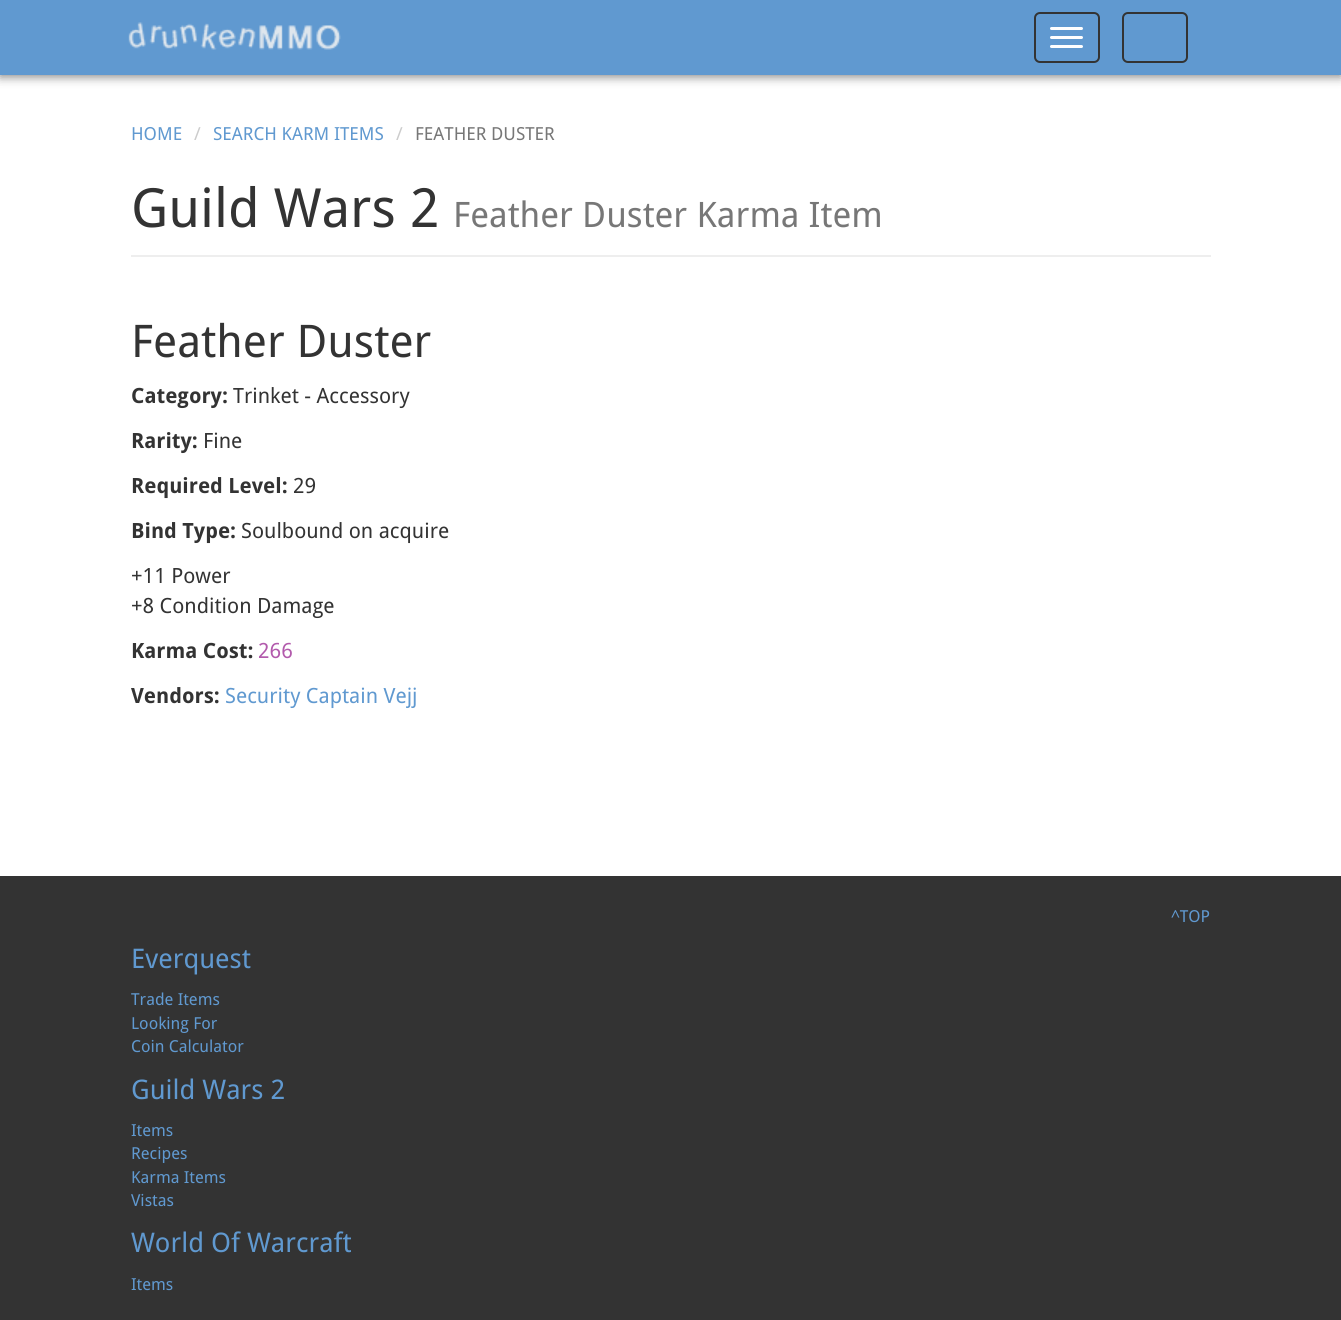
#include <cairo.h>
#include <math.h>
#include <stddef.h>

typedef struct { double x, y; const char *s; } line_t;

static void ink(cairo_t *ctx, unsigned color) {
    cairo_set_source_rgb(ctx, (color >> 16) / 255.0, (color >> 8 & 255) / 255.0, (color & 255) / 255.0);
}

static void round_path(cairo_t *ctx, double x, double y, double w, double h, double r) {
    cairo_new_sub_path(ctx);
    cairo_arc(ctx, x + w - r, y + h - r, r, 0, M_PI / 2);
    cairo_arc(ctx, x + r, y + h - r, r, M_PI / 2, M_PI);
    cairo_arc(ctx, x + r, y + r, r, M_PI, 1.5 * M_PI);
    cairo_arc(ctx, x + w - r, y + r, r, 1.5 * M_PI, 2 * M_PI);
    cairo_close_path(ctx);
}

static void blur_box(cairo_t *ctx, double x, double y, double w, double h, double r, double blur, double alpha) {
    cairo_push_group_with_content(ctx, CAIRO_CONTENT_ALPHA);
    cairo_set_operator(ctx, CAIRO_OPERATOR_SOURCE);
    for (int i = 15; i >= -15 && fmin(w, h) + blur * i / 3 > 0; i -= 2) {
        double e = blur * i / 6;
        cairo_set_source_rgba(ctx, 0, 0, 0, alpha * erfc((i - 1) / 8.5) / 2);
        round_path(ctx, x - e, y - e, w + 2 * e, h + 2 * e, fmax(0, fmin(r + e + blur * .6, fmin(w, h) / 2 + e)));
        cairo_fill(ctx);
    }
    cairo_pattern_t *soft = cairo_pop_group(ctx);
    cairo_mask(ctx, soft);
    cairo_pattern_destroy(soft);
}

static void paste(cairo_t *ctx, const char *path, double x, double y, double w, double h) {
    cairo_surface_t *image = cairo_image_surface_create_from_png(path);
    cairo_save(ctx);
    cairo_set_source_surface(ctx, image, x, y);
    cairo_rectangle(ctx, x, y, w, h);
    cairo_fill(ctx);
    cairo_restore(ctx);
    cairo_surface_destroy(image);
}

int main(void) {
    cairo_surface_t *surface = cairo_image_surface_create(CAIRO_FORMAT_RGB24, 1341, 1320);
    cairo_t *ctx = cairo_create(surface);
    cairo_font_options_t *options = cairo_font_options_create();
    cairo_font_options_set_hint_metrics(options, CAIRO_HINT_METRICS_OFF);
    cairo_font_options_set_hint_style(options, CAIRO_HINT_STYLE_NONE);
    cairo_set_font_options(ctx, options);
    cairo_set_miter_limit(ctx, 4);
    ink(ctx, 0xFFFFFF);
    cairo_paint(ctx);
    ink(ctx, 0x888888);
    blur_box(ctx, 0, 2, 1341, 75, 0, 5, 1);
    ink(ctx, 0x6099D0);
    cairo_rectangle(ctx, 0, 0, 1341, 75);
    cairo_fill(ctx);
    paste(ctx, "media/1.png", 128, 22, 213, 28);
    round_path(ctx, 1035, 13, 64, 49, 5);
    ink(ctx, 0x333333);
    cairo_stroke(ctx);
    ink(ctx, 0xFFFFFF);
    round_path(ctx, 1050, 27, 33, 3, 1.5);
    cairo_fill(ctx);
    round_path(ctx, 1050, 36, 33, 3, 1.5);
    cairo_fill(ctx);
    round_path(ctx, 1050, 45, 33, 3, 1.5);
    cairo_fill(ctx);
    round_path(ctx, 1123, 13, 64, 49, 5);
    ink(ctx, 0x333333);
    cairo_stroke(ctx);
    cairo_select_font_face(ctx, "Droid Sans", CAIRO_FONT_SLANT_NORMAL, CAIRO_FONT_WEIGHT_NORMAL);
    cairo_set_font_size(ctx, 18);
    ink(ctx, 0x6099D0);
    cairo_move_to(ctx, 131, 140);
    cairo_show_text(ctx, "HOME");
    ink(ctx, 0xCCCCCC);
    cairo_move_to(ctx, 194, 140);
    cairo_show_text(ctx, "/");
    ink(ctx, 0x6099D0);
    cairo_move_to(ctx, 213, 140);
    cairo_show_text(ctx, "SEARCH KARM ITEMS");
    ink(ctx, 0xCCCCCC);
    cairo_move_to(ctx, 396, 140);
    cairo_show_text(ctx, "/");
    ink(ctx, 0x777777);
    cairo_move_to(ctx, 415, 140);
    cairo_show_text(ctx, "FEATHER DUSTER");
    ink(ctx, 0xEEEEEE);
    cairo_rectangle(ctx, 131, 255, 1080, 2);
    cairo_fill(ctx);
    cairo_set_font_size(ctx, 54);
    ink(ctx, 0x333333);
    cairo_move_to(ctx, 131, 227);
    cairo_show_text(ctx, "Guild Wars 2");
    cairo_set_font_size(ctx, 35.1);
    ink(ctx, 0x777777);
    cairo_move_to(ctx, 453, 227);
    cairo_show_text(ctx, "Feather Duster Karma Item");
    cairo_set_font_size(ctx, 45);
    ink(ctx, 0x333333);
    cairo_move_to(ctx, 131, 357);
    cairo_show_text(ctx, "Feather Duster");
    cairo_select_font_face(ctx, "Droid Sans", CAIRO_FONT_SLANT_NORMAL, CAIRO_FONT_WEIGHT_BOLD);
    cairo_set_font_size(ctx, 21);
    cairo_move_to(ctx, 131, 403);
    cairo_show_text(ctx, "Category:");
    cairo_select_font_face(ctx, "Droid Sans", CAIRO_FONT_SLANT_NORMAL, CAIRO_FONT_WEIGHT_NORMAL);
    cairo_move_to(ctx, 233, 403);
    cairo_show_text(ctx, "Trinket - Accessory");
    cairo_select_font_face(ctx, "Droid Sans", CAIRO_FONT_SLANT_NORMAL, CAIRO_FONT_WEIGHT_BOLD);
    cairo_move_to(ctx, 131, 448);
    cairo_show_text(ctx, "Rarity:");
    cairo_select_font_face(ctx, "Droid Sans", CAIRO_FONT_SLANT_NORMAL, CAIRO_FONT_WEIGHT_NORMAL);
    cairo_move_to(ctx, 203, 448);
    cairo_show_text(ctx, "Fine");
    cairo_select_font_face(ctx, "Droid Sans", CAIRO_FONT_SLANT_NORMAL, CAIRO_FONT_WEIGHT_BOLD);
    cairo_move_to(ctx, 131, 493);
    cairo_show_text(ctx, "Required Level:");
    cairo_select_font_face(ctx, "Droid Sans", CAIRO_FONT_SLANT_NORMAL, CAIRO_FONT_WEIGHT_NORMAL);
    cairo_move_to(ctx, 293, 493);
    cairo_show_text(ctx, "29");
    cairo_select_font_face(ctx, "Droid Sans", CAIRO_FONT_SLANT_NORMAL, CAIRO_FONT_WEIGHT_BOLD);
    cairo_move_to(ctx, 131, 538);
    cairo_show_text(ctx, "Bind Type:");
    cairo_select_font_face(ctx, "Droid Sans", CAIRO_FONT_SLANT_NORMAL, CAIRO_FONT_WEIGHT_NORMAL);
    {
        static const line_t items[] = {
            {241, 538, "Soulbound on acquire"},
            {131, 583, "+11 Power"},
            {131, 613, "+8 Condition Damage"},
        };
        for (size_t i = 0; i < sizeof items / sizeof *items; i++) {
            cairo_move_to(ctx, items[i].x, items[i].y);
            cairo_show_text(ctx, items[i].s);
        }
    }
    cairo_select_font_face(ctx, "Droid Sans", CAIRO_FONT_SLANT_NORMAL, CAIRO_FONT_WEIGHT_BOLD);
    cairo_move_to(ctx, 131, 658);
    cairo_show_text(ctx, "Karma Cost:");
    cairo_select_font_face(ctx, "Droid Sans", CAIRO_FONT_SLANT_NORMAL, CAIRO_FONT_WEIGHT_NORMAL);
    ink(ctx, 0xB25AAC);
    cairo_move_to(ctx, 258, 658);
    cairo_show_text(ctx, "266");
    cairo_select_font_face(ctx, "Droid Sans", CAIRO_FONT_SLANT_NORMAL, CAIRO_FONT_WEIGHT_BOLD);
    ink(ctx, 0x333333);
    cairo_move_to(ctx, 131, 703);
    cairo_show_text(ctx, "Vendors:");
    cairo_select_font_face(ctx, "Droid Sans", CAIRO_FONT_SLANT_NORMAL, CAIRO_FONT_WEIGHT_NORMAL);
    ink(ctx, 0x6099D0);
    cairo_move_to(ctx, 225, 703);
    cairo_show_text(ctx, "Security Captain Vejj");
    ink(ctx, 0x333333);
    cairo_rectangle(ctx, 0, 876, 1341, 444);
    cairo_fill(ctx);
    cairo_set_font_size(ctx, 16.5);
    ink(ctx, 0x6099D0);
    cairo_move_to(ctx, 1171, 922);
    cairo_show_text(ctx, "^TOP");
    cairo_set_font_size(ctx, 27);
    cairo_move_to(ctx, 131, 968);
    cairo_show_text(ctx, "Everquest");
    cairo_set_font_size(ctx, 16.5);
    {
        static const line_t items[] = {
            {131, 1005, "Trade Items"},
            {131, 1029, "Looking For"},
            {131, 1052, "Coin Calculator"},
        };
        for (size_t i = 0; i < sizeof items / sizeof *items; i++) {
            cairo_move_to(ctx, items[i].x, items[i].y);
            cairo_show_text(ctx, items[i].s);
        }
    }
    cairo_set_font_size(ctx, 27);
    cairo_move_to(ctx, 131, 1099);
    cairo_show_text(ctx, "Guild Wars 2");
    cairo_set_font_size(ctx, 16.5);
    {
        static const line_t items[] = {
            {131, 1136, "Items"},
            {131, 1159, "Recipes"},
            {131, 1183, "Karma Items"},
            {131, 1206, "Vistas"},
        };
        for (size_t i = 0; i < sizeof items / sizeof *items; i++) {
            cairo_move_to(ctx, items[i].x, items[i].y);
            cairo_show_text(ctx, items[i].s);
        }
    }
    cairo_set_font_size(ctx, 27);
    cairo_move_to(ctx, 131, 1252);
    cairo_show_text(ctx, "World Of Warcraft");
    cairo_set_font_size(ctx, 16.5);
    cairo_move_to(ctx, 131, 1290);
    cairo_show_text(ctx, "Items");
    cairo_surface_write_to_png(surface, "image.png");
    cairo_font_options_destroy(options);
    cairo_destroy(ctx);
    cairo_surface_destroy(surface);
    return 0;
}
